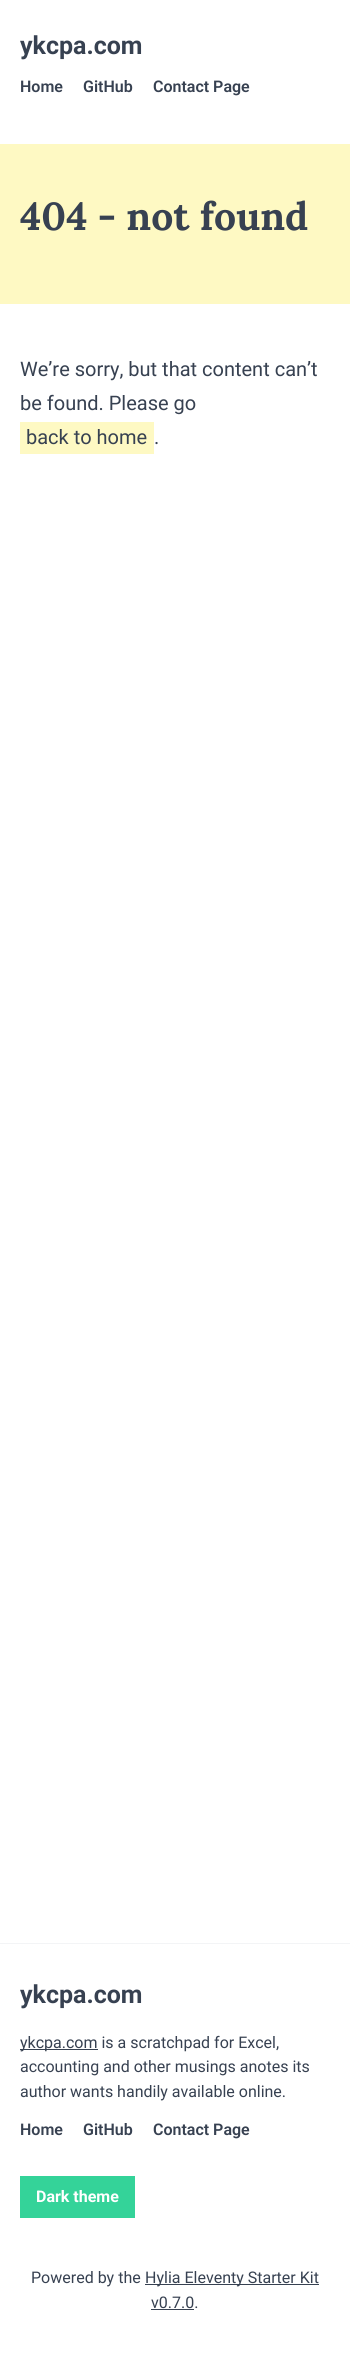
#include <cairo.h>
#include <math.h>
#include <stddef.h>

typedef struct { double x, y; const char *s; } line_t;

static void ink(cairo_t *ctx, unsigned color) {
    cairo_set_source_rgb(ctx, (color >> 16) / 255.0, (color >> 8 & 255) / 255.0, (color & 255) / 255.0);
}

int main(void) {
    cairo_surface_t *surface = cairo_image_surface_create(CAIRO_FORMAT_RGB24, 350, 2365);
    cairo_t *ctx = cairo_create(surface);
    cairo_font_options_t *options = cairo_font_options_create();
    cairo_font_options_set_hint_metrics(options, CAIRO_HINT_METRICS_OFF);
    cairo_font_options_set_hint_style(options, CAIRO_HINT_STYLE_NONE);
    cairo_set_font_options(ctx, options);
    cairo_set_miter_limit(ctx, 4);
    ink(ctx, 0xFFFFFF);
    cairo_paint(ctx);
    cairo_select_font_face(ctx, "Roboto", CAIRO_FONT_SLANT_NORMAL, CAIRO_FONT_WEIGHT_BOLD);
    cairo_set_font_size(ctx, 25);
    ink(ctx, 0x374151);
    cairo_move_to(ctx, 20, 54);
    cairo_show_text(ctx, "ykcpa.com");
    cairo_select_font_face(ctx, "Roboto SemiBold", CAIRO_FONT_SLANT_NORMAL, CAIRO_FONT_WEIGHT_NORMAL);
    cairo_set_font_size(ctx, 16);
    {
        static const line_t items[] = {
            {20, 92, "Home"},
            {83, 92, "GitHub"},
            {153, 92, "Contact Page"},
        };
        for (size_t i = 0; i < sizeof items / sizeof *items; i++) {
            cairo_move_to(ctx, items[i].x, items[i].y);
            cairo_show_text(ctx, items[i].s);
        }
    }
    ink(ctx, 0xFEF9C3);
    cairo_rectangle(ctx, 0, 144, 350, 160);
    cairo_fill(ctx);
    cairo_select_font_face(ctx, "Lora", CAIRO_FONT_SLANT_NORMAL, CAIRO_FONT_WEIGHT_BOLD);
    cairo_set_font_size(ctx, 39);
    ink(ctx, 0x374151);
    cairo_move_to(ctx, 20, 230);
    cairo_show_text(ctx, "404 - not found");
    cairo_select_font_face(ctx, "Roboto", CAIRO_FONT_SLANT_NORMAL, CAIRO_FONT_WEIGHT_NORMAL);
    cairo_set_font_size(ctx, 20);
    cairo_move_to(ctx, 20, 376);
    cairo_show_text(ctx, "We’re sorry, but that content can’t");
    cairo_move_to(ctx, 20, 410);
    cairo_show_text(ctx, "be found. Please go");
    ink(ctx, 0xFEF9C3);
    cairo_rectangle(ctx, 20, 422, 134, 32);
    cairo_fill(ctx);
    ink(ctx, 0x374151);
    cairo_move_to(ctx, 26, 444);
    cairo_show_text(ctx, "back to home");
    cairo_move_to(ctx, 154, 444);
    cairo_show_text(ctx, ".");
    ink(ctx, 0xF3F4F6);
    cairo_rectangle(ctx, 0, 1943, 350, 1);
    cairo_fill(ctx);
    cairo_select_font_face(ctx, "Roboto", CAIRO_FONT_SLANT_NORMAL, CAIRO_FONT_WEIGHT_BOLD);
    cairo_set_font_size(ctx, 25);
    ink(ctx, 0x374151);
    cairo_move_to(ctx, 20, 2003);
    cairo_show_text(ctx, "ykcpa.com");
    cairo_rectangle(ctx, 20, 2049, 78, 1);
    cairo_fill(ctx);
    cairo_select_font_face(ctx, "Roboto", CAIRO_FONT_SLANT_NORMAL, CAIRO_FONT_WEIGHT_NORMAL);
    cairo_set_font_size(ctx, 16);
    {
        static const line_t items[] = {
            {20, 2048, "ykcpa.com is a scratchpad for Excel,"},
            {20, 2072, "accounting and other musings anotes its"},
            {20, 2097, "author wants handily available online."},
        };
        for (size_t i = 0; i < sizeof items / sizeof *items; i++) {
            cairo_move_to(ctx, items[i].x, items[i].y);
            cairo_show_text(ctx, items[i].s);
        }
    }
    cairo_select_font_face(ctx, "Roboto SemiBold", CAIRO_FONT_SLANT_NORMAL, CAIRO_FONT_WEIGHT_NORMAL);
    {
        static const line_t items[] = {
            {20, 2135, "Home"},
            {83, 2135, "GitHub"},
            {153, 2135, "Contact Page"},
        };
        for (size_t i = 0; i < sizeof items / sizeof *items; i++) {
            cairo_move_to(ctx, items[i].x, items[i].y);
            cairo_show_text(ctx, items[i].s);
        }
    }
    ink(ctx, 0x34D399);
    cairo_rectangle(ctx, 20, 2176, 115, 42);
    cairo_fill(ctx);
    cairo_select_font_face(ctx, "Roboto", CAIRO_FONT_SLANT_NORMAL, CAIRO_FONT_WEIGHT_BOLD);
    ink(ctx, 0xFFFFFF);
    cairo_move_to(ctx, 36, 2202);
    cairo_show_text(ctx, "Dark theme");
    cairo_select_font_face(ctx, "Roboto", CAIRO_FONT_SLANT_NORMAL, CAIRO_FONT_WEIGHT_NORMAL);
    ink(ctx, 0x374151);
    cairo_move_to(ctx, 31, 2283);
    cairo_show_text(ctx, "Powered by the");
    cairo_rectangle(ctx, 145, 2284, 174, 1);
    cairo_fill(ctx);
    cairo_move_to(ctx, 145, 2283);
    cairo_show_text(ctx, "Hylia Eleventy Starter Kit");
    cairo_move_to(ctx, 151, 2308);
    cairo_show_text(ctx, "v0.7.0.");
    cairo_rectangle(ctx, 151, 2309, 43, 1);
    cairo_fill(ctx);
    cairo_surface_write_to_png(surface, "image.png");
    cairo_font_options_destroy(options);
    cairo_destroy(ctx);
    cairo_surface_destroy(surface);
    return 0;
}
